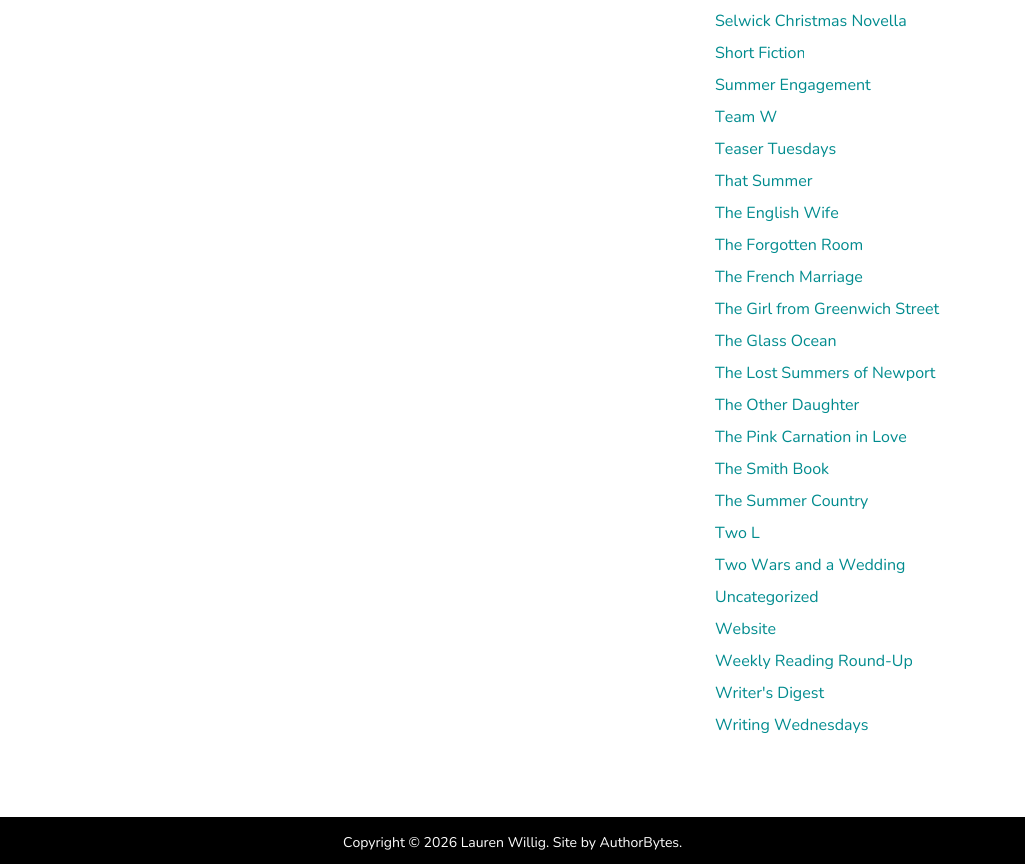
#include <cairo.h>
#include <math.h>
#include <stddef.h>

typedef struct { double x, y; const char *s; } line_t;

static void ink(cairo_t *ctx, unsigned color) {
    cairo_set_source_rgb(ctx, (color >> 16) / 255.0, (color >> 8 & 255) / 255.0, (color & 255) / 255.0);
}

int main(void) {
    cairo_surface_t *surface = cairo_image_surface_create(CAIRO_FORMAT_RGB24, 1025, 864);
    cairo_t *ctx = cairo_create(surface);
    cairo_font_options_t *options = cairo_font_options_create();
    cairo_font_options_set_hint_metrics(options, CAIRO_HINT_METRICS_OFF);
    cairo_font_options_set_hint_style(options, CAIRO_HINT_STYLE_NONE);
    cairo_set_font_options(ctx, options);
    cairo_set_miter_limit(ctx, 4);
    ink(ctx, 0xFFFFFF);
    cairo_paint(ctx);
    cairo_select_font_face(ctx, "Nunito", CAIRO_FONT_SLANT_NORMAL, CAIRO_FONT_WEIGHT_NORMAL);
    cairo_set_font_size(ctx, 16);
    ink(ctx, 0x008B8E);
    {
        static const line_t items[] = {
            {715, 26, "Selwick Christmas Novella"},
            {715, 58, "Short Fiction"},
            {715, 90, "Summer Engagement"},
            {715, 122, "Team W"},
            {715, 154, "Teaser Tuesdays"},
            {715, 186, "That Summer"},
            {715, 218, "The English Wife"},
            {715, 250, "The Forgotten Room"},
            {715, 282, "The French Marriage"},
            {715, 314, "The Girl from Greenwich Street"},
            {715, 346, "The Glass Ocean"},
            {715, 378, "The Lost Summers of Newport"},
            {715, 410, "The Other Daughter"},
            {715, 442, "The Pink Carnation in Love"},
            {715, 474, "The Smith Book"},
            {715, 506, "The Summer Country"},
            {715, 538, "Two L"},
            {715, 570, "Two Wars and a Wedding"},
            {715, 602, "Uncategorized"},
            {715, 634, "Website"},
            {715, 666, "Weekly Reading Round-Up"},
            {715, 698, "Writer's Digest"},
            {715, 730, "Writing Wednesdays"},
        };
        for (size_t i = 0; i < sizeof items / sizeof *items; i++) {
            cairo_move_to(ctx, items[i].x, items[i].y);
            cairo_show_text(ctx, items[i].s);
        }
    }
    ink(ctx, 0x000000);
    cairo_rectangle(ctx, 0, 817, 1025, 47);
    cairo_fill(ctx);
    cairo_set_font_size(ctx, 14);
    ink(ctx, 0xFFFFFF);
    cairo_move_to(ctx, 343, 847);
    cairo_show_text(ctx, "Copyright © 2026 Lauren Willig. Site by AuthorBytes.");
    cairo_surface_write_to_png(surface, "image.png");
    cairo_font_options_destroy(options);
    cairo_destroy(ctx);
    cairo_surface_destroy(surface);
    return 0;
}
